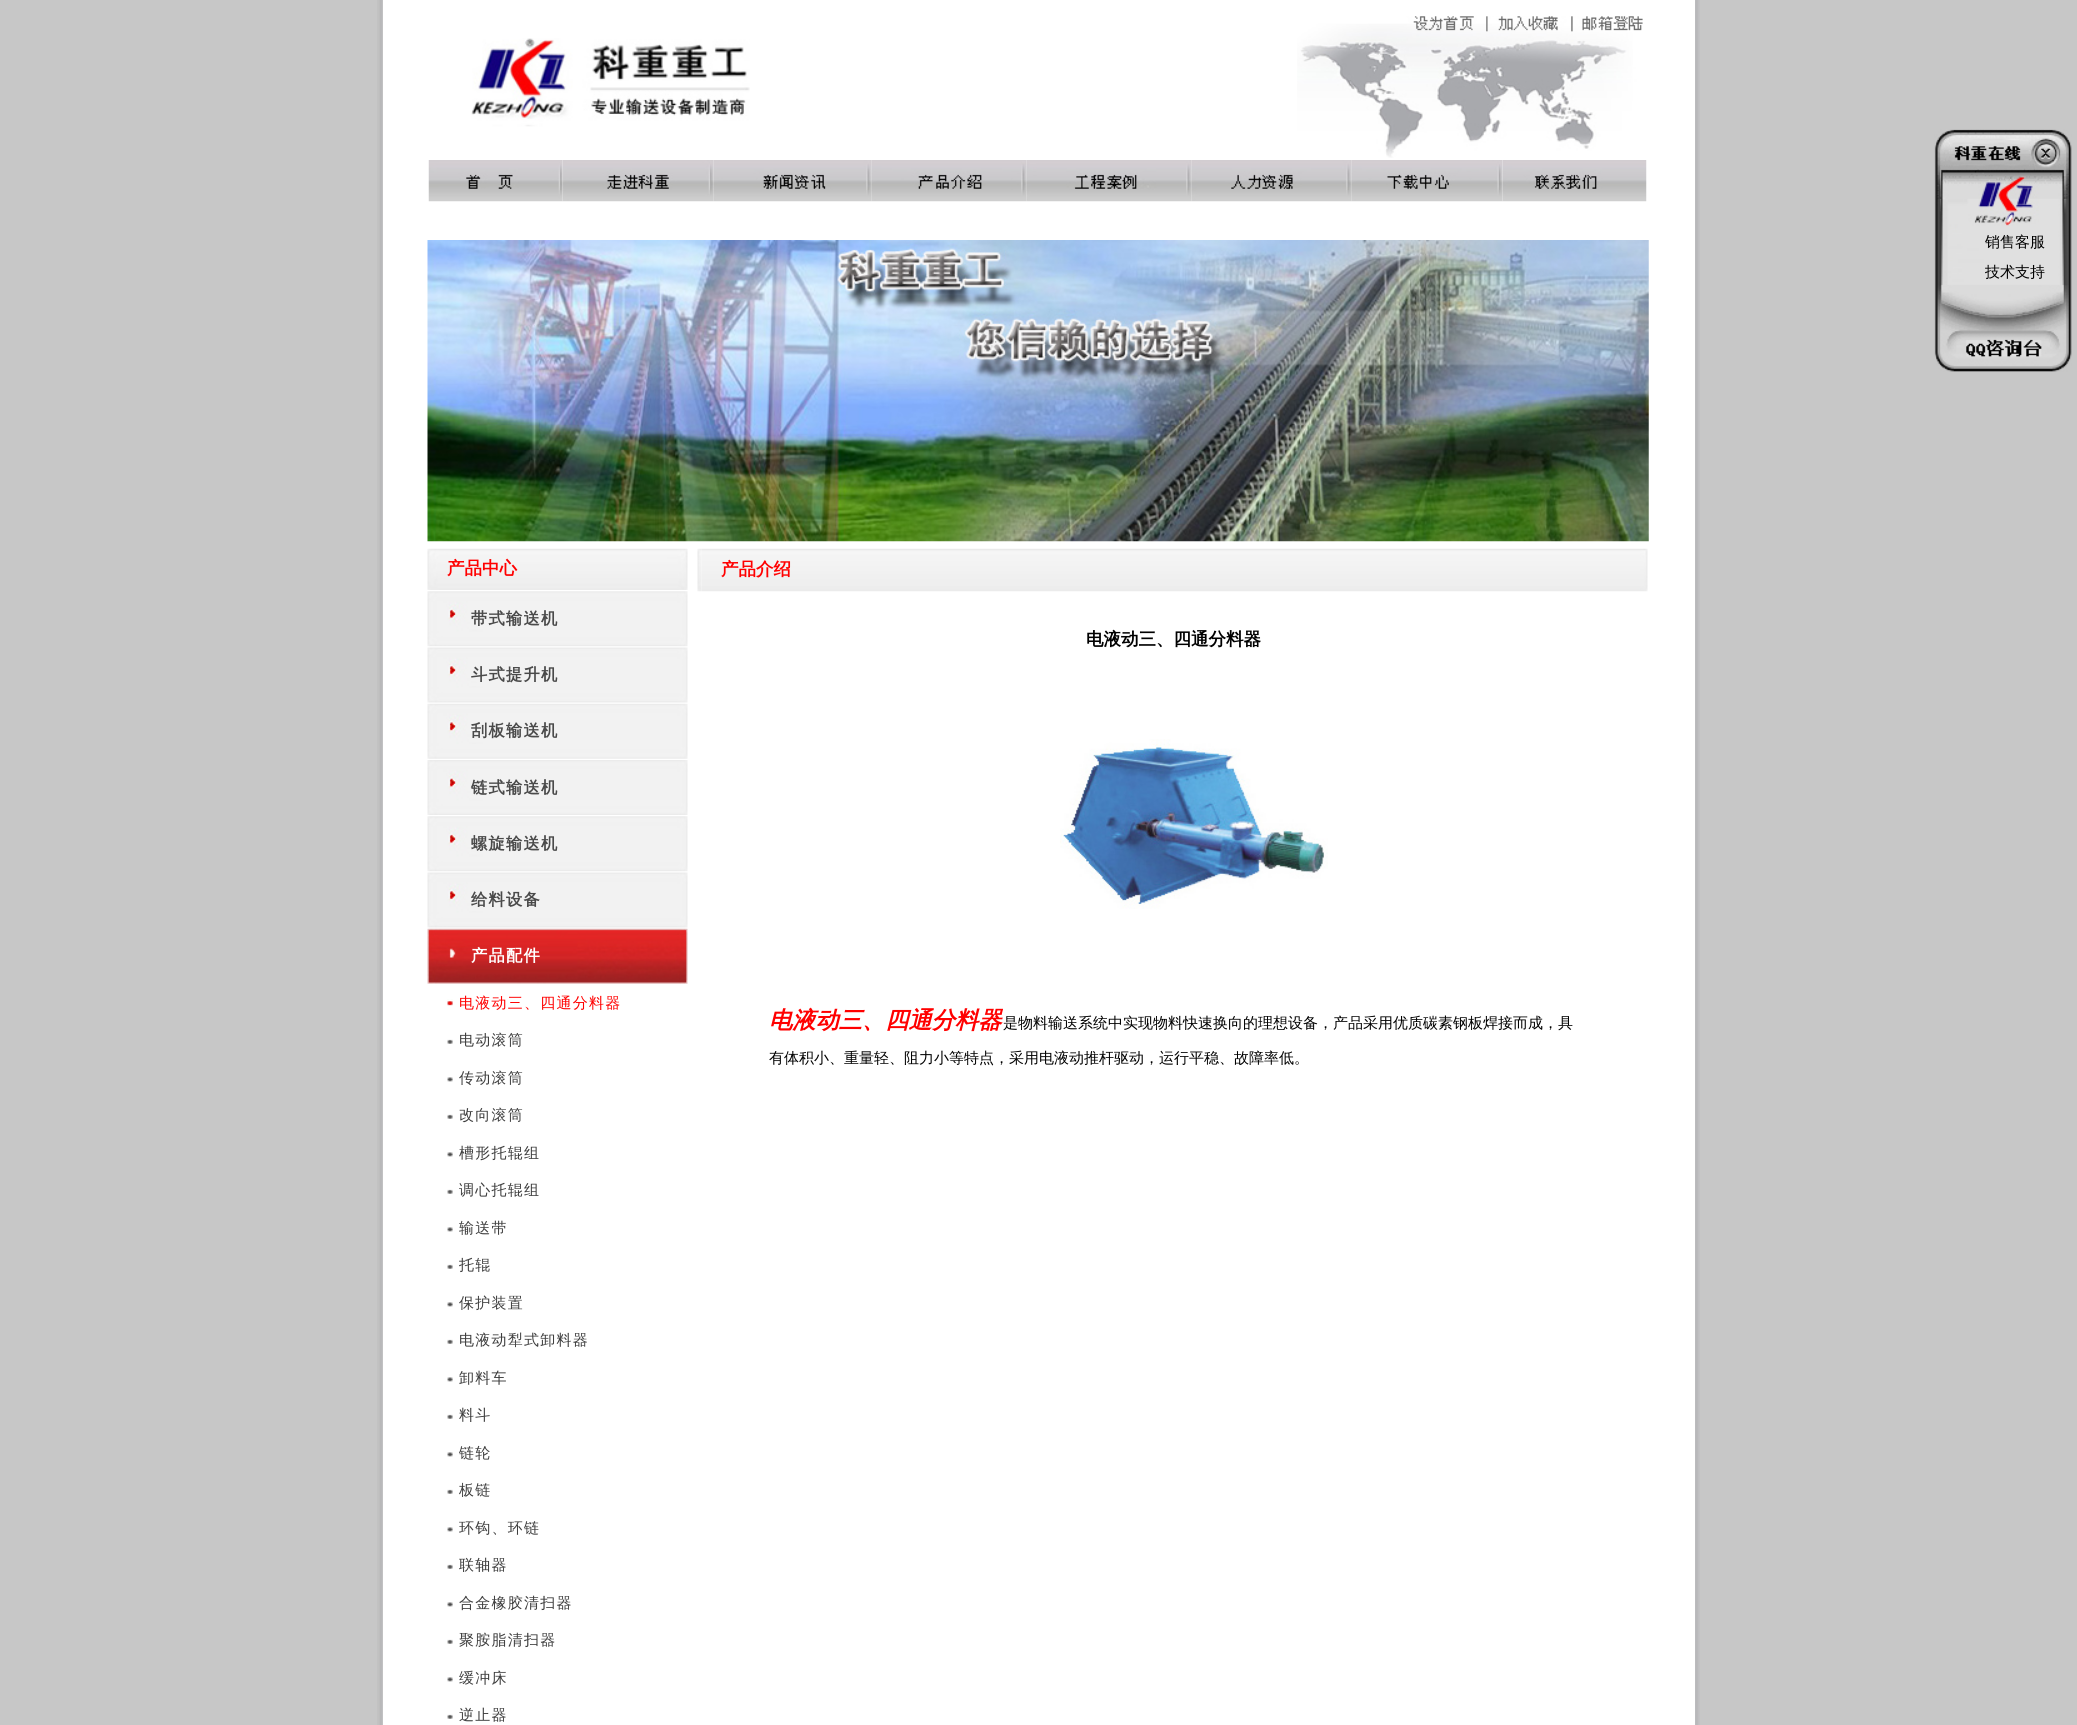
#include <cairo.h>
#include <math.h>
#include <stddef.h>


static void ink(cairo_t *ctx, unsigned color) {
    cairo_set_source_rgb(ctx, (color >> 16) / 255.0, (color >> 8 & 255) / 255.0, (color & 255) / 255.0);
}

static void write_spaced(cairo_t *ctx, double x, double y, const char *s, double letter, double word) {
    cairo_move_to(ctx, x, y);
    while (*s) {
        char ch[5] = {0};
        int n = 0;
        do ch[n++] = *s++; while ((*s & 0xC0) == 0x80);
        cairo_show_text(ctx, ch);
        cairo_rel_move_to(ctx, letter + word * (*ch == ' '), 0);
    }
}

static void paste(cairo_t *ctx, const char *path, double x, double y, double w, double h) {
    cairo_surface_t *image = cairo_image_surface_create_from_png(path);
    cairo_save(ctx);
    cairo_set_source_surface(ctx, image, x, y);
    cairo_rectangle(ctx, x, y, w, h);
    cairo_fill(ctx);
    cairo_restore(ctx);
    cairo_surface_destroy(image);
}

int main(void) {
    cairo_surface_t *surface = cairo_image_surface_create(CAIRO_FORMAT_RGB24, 2077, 1725);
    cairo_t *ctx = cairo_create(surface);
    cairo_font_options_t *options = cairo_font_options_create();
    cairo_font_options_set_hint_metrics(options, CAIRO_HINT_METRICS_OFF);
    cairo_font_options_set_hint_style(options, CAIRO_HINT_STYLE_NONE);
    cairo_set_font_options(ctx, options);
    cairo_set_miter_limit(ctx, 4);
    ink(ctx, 0xC7C7C7);
    cairo_paint(ctx);
    paste(ctx, "media/1.png", 377, 0, 6, 1725);
    ink(ctx, 0xFFFFFF);
    cairo_rectangle(ctx, 383, 0, 1312, 1725);
    cairo_fill(ctx);
    paste(ctx, "media/2.png", 1695, 0, 5, 1725);
    paste(ctx, "media/3.png", 471, 38, 279, 89);
    paste(ctx, "media/4.png", 1297, 16, 346, 142);
    paste(ctx, "media/5.png", 428, 160, 135, 42);
    paste(ctx, "media/6.png", 562, 160, 152, 42);
    paste(ctx, "media/7.png", 713, 160, 159, 42);
    paste(ctx, "media/8.png", 871, 160, 156, 42);
    paste(ctx, "media/9.png", 1026, 160, 166, 42);
    paste(ctx, "media/10.png", 1191, 160, 161, 42);
    paste(ctx, "media/11.png", 1351, 160, 152, 42);
    paste(ctx, "media/12.png", 1502, 160, 145, 42);
    paste(ctx, "media/13.png", 427, 240, 1222, 302);
    paste(ctx, "media/14.png", 1934, 129, 138, 243);
    cairo_select_font_face(ctx, "WenQuanYi Zen Hei Medium", CAIRO_FONT_SLANT_NORMAL, CAIRO_FONT_WEIGHT_NORMAL);
    cairo_set_font_size(ctx, 15);
    ink(ctx, 0x000000);
    cairo_move_to(ctx, 1985, 247);
    cairo_show_text(ctx, "销售客服");
    cairo_move_to(ctx, 1985, 277);
    cairo_show_text(ctx, "技术支持");
    paste(ctx, "media/15.png", 427, 548, 261, 42);
    cairo_select_font_face(ctx, "WenQuanYi Zen Hei", CAIRO_FONT_SLANT_NORMAL, CAIRO_FONT_WEIGHT_BOLD);
    cairo_set_font_size(ctx, 17.5);
    ink(ctx, 0xFF0000);
    cairo_move_to(ctx, 447, 574);
    cairo_show_text(ctx, "产品中心");
    paste(ctx, "media/16.png", 427, 591, 261, 56);
    cairo_set_font_size(ctx, 16.25);
    ink(ctx, 0x4A4A4A);
    write_spaced(ctx, 471, 624, "带式输送机", 1.25, 0);
    paste(ctx, "media/17.png", 427, 647, 261, 56);
    write_spaced(ctx, 471, 680, "斗式提升机", 1.25, 0);
    paste(ctx, "media/18.png", 427, 703, 261, 56);
    write_spaced(ctx, 471, 736, "刮板输送机", 1.25, 0);
    paste(ctx, "media/19.png", 427, 760, 261, 55);
    write_spaced(ctx, 471, 793, "链式输送机", 1.25, 0);
    paste(ctx, "media/16.png", 427, 816, 261, 56);
    write_spaced(ctx, 471, 849, "螺旋输送机", 1.25, 0);
    paste(ctx, "media/17.png", 427, 872, 261, 56);
    write_spaced(ctx, 471, 905, "给料设备", 1.25, 0);
    paste(ctx, "media/20.png", 427, 928, 261, 56);
    ink(ctx, 0xFFFFFF);
    write_spaced(ctx, 471, 961, "产品配件", 1.25, 0);
    paste(ctx, "media/21.png", 447, 999, 6, 7);
    cairo_select_font_face(ctx, "WenQuanYi Zen Hei Medium", CAIRO_FONT_SLANT_NORMAL, CAIRO_FONT_WEIGHT_NORMAL);
    cairo_set_font_size(ctx, 15);
    ink(ctx, 0xFF0000);
    write_spaced(ctx, 459, 1008, "电液动三、四通分料器", 1.25, 0);
    paste(ctx, "media/22.png", 447, 1039, 6, 5);
    ink(ctx, 0x3D3D3D);
    write_spaced(ctx, 459, 1045, "电动滚筒", 1.25, 0);
    paste(ctx, "media/23.png", 447, 1077, 6, 5);
    write_spaced(ctx, 459, 1083, "传动滚筒", 1.25, 0);
    paste(ctx, "media/22.png", 447, 1114, 6, 5);
    write_spaced(ctx, 459, 1120, "改向滚筒", 1.25, 0);
    paste(ctx, "media/23.png", 447, 1152, 6, 5);
    write_spaced(ctx, 459, 1158, "槽形托辊组", 1.25, 0);
    paste(ctx, "media/22.png", 447, 1189, 6, 5);
    write_spaced(ctx, 459, 1195, "调心托辊组", 1.25, 0);
    paste(ctx, "media/23.png", 447, 1227, 6, 5);
    write_spaced(ctx, 459, 1233, "输送带", 1.25, 0);
    paste(ctx, "media/22.png", 447, 1264, 6, 5);
    write_spaced(ctx, 459, 1270, "托辊", 1.25, 0);
    paste(ctx, "media/23.png", 447, 1302, 6, 5);
    write_spaced(ctx, 459, 1308, "保护装置", 1.25, 0);
    paste(ctx, "media/22.png", 447, 1339, 6, 5);
    write_spaced(ctx, 459, 1345, "电液动犁式卸料器", 1.25, 0);
    paste(ctx, "media/23.png", 447, 1377, 6, 5);
    write_spaced(ctx, 459, 1383, "卸料车", 1.25, 0);
    paste(ctx, "media/22.png", 447, 1414, 6, 5);
    write_spaced(ctx, 459, 1420, "料斗", 1.25, 0);
    paste(ctx, "media/23.png", 447, 1452, 6, 5);
    write_spaced(ctx, 459, 1458, "链轮", 1.25, 0);
    paste(ctx, "media/22.png", 447, 1489, 6, 5);
    write_spaced(ctx, 459, 1495, "板链", 1.25, 0);
    paste(ctx, "media/23.png", 447, 1527, 6, 5);
    write_spaced(ctx, 459, 1533, "环钩、环链", 1.25, 0);
    paste(ctx, "media/24.png", 447, 1564, 6, 5);
    write_spaced(ctx, 459, 1570, "联轴器", 1.25, 0);
    paste(ctx, "media/23.png", 447, 1602, 6, 5);
    write_spaced(ctx, 459, 1608, "合金橡胶清扫器", 1.25, 0);
    paste(ctx, "media/22.png", 447, 1639, 6, 5);
    write_spaced(ctx, 459, 1645, "聚胺脂清扫器", 1.25, 0);
    paste(ctx, "media/23.png", 447, 1677, 6, 5);
    write_spaced(ctx, 459, 1683, "缓冲床", 1.25, 0);
    paste(ctx, "media/22.png", 447, 1714, 6, 5);
    write_spaced(ctx, 459, 1720, "逆止器", 1.25, 0);
    paste(ctx, "media/25.png", 697, 548, 4, 44);
    paste(ctx, "media/26.png", 701, 548, 939, 44);
    cairo_select_font_face(ctx, "WenQuanYi Zen Hei", CAIRO_FONT_SLANT_NORMAL, CAIRO_FONT_WEIGHT_BOLD);
    cairo_set_font_size(ctx, 17.5);
    ink(ctx, 0xFF0000);
    cairo_move_to(ctx, 721, 575);
    cairo_show_text(ctx, "产品介绍");
    paste(ctx, "media/27.png", 1640, 548, 8, 44);
    ink(ctx, 0x000000);
    cairo_move_to(ctx, 1086, 645);
    cairo_show_text(ctx, "电液动三、四通分料器");
    paste(ctx, "media/28.png", 1060, 739, 268, 170);
    cairo_select_font_face(ctx, "WenQuanYi Zen Hei", CAIRO_FONT_SLANT_ITALIC, CAIRO_FONT_WEIGHT_BOLD);
    cairo_set_font_size(ctx, 23.25);
    ink(ctx, 0xFF0000);
    cairo_move_to(ctx, 769, 1028);
    cairo_show_text(ctx, "电液动三、四通分料器");
    cairo_select_font_face(ctx, "WenQuanYi Zen Hei Medium", CAIRO_FONT_SLANT_NORMAL, CAIRO_FONT_WEIGHT_NORMAL);
    cairo_set_font_size(ctx, 15);
    ink(ctx, 0x000000);
    cairo_move_to(ctx, 1003, 1028);
    cairo_show_text(ctx, "是物料输送系统中实现物料快速换向的理想设备，产品采用优质碳素钢板焊接而成，具");
    cairo_move_to(ctx, 769, 1063);
    cairo_show_text(ctx, "有体积小、重量轻、阻力小等特点，采用电液动推杆驱动，运行平稳、故障率低。");
    cairo_surface_write_to_png(surface, "image.png");
    cairo_font_options_destroy(options);
    cairo_destroy(ctx);
    cairo_surface_destroy(surface);
    return 0;
}
